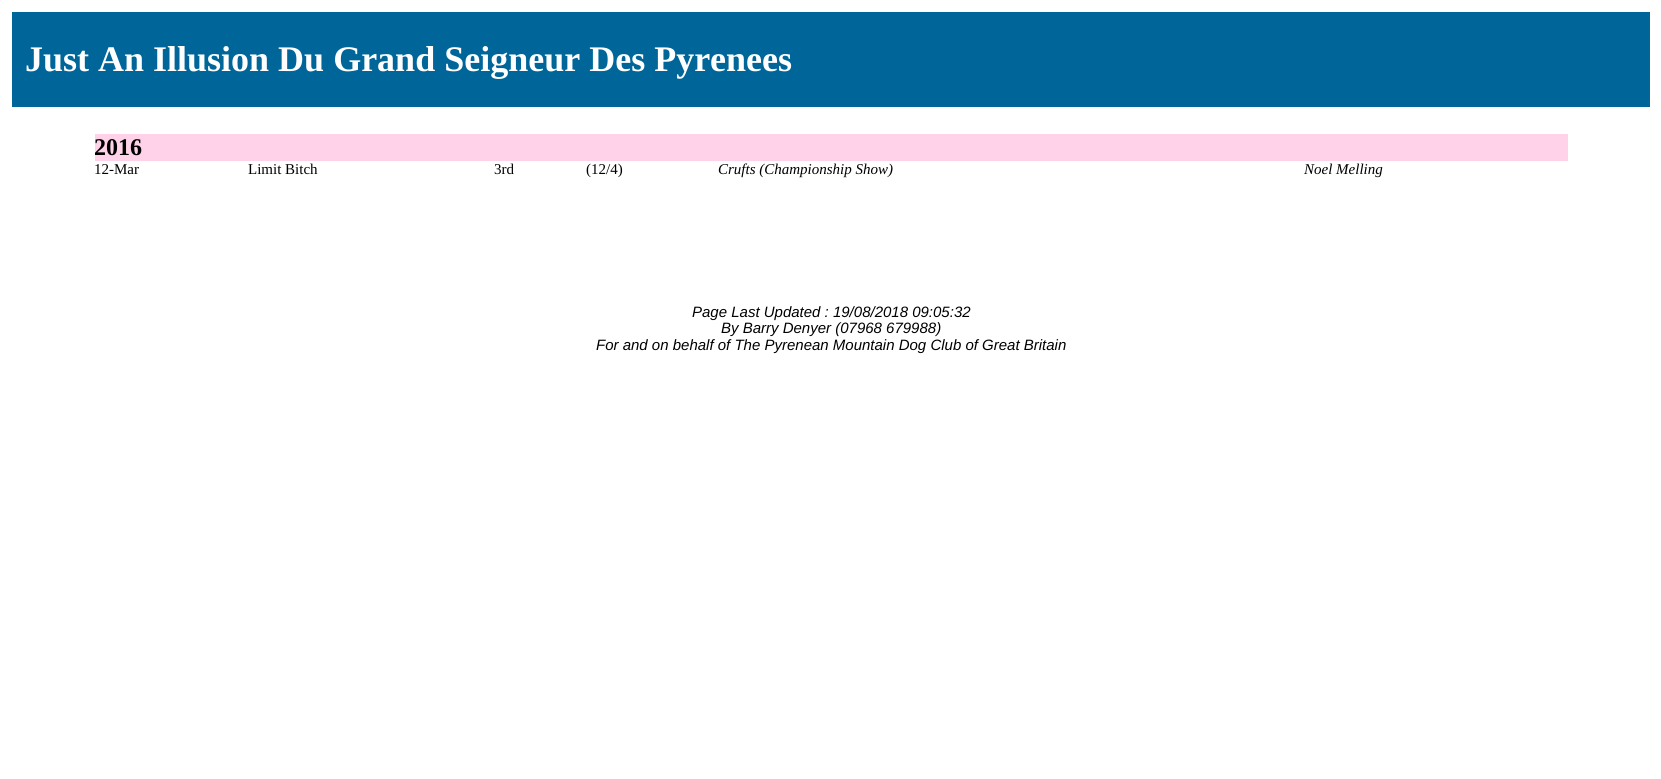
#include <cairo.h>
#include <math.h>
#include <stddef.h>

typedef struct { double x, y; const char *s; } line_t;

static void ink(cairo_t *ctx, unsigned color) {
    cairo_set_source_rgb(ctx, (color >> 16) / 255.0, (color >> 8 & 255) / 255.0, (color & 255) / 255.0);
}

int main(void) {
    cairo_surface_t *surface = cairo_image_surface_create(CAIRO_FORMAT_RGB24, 1661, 779);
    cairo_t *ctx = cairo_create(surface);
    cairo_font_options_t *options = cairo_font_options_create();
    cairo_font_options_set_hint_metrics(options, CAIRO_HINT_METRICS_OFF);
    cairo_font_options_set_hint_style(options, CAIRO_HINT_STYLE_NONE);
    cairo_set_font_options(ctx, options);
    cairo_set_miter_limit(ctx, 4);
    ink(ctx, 0xFFFFFF);
    cairo_paint(ctx);
    ink(ctx, 0x006699);
    cairo_rectangle(ctx, 12, 12, 1638, 27);
    cairo_fill(ctx);
    cairo_rectangle(ctx, 12, 39, 1638, 68);
    cairo_fill(ctx);
    cairo_select_font_face(ctx, "Liberation Serif", CAIRO_FONT_SLANT_NORMAL, CAIRO_FONT_WEIGHT_BOLD);
    cairo_set_font_size(ctx, 36);
    ink(ctx, 0xFFFFFF);
    cairo_move_to(ctx, 25, 71);
    cairo_show_text(ctx, "Just An Illusion Du Grand Seigneur Des Pyrenees");
    ink(ctx, 0xFFD2E9);
    cairo_rectangle(ctx, 95, 134, 1473, 27);
    cairo_fill(ctx);
    cairo_set_font_size(ctx, 24);
    ink(ctx, 0x000000);
    cairo_move_to(ctx, 94, 155);
    cairo_show_text(ctx, "2016");
    cairo_select_font_face(ctx, "Liberation Serif", CAIRO_FONT_SLANT_NORMAL, CAIRO_FONT_WEIGHT_NORMAL);
    cairo_set_font_size(ctx, 15);
    {
        static const line_t items[] = {
            {94, 174, "12-Mar"},
            {248, 174, "Limit Bitch"},
            {494, 174, "3rd"},
            {586, 174, "(12/4)"},
        };
        for (size_t i = 0; i < sizeof items / sizeof *items; i++) {
            cairo_move_to(ctx, items[i].x, items[i].y);
            cairo_show_text(ctx, items[i].s);
        }
    }
    cairo_select_font_face(ctx, "Liberation Serif", CAIRO_FONT_SLANT_ITALIC, CAIRO_FONT_WEIGHT_NORMAL);
    cairo_move_to(ctx, 718, 174);
    cairo_show_text(ctx, "Crufts (Championship Show)");
    cairo_move_to(ctx, 1304, 174);
    cairo_show_text(ctx, "Noel Melling");
    cairo_select_font_face(ctx, "Liberation Sans", CAIRO_FONT_SLANT_ITALIC, CAIRO_FONT_WEIGHT_NORMAL);
    {
        static const line_t items[] = {
            {692, 317, "Page Last Updated : 19/08/2018 09:05:32"},
            {721, 333, "By Barry Denyer (07968 679988)"},
            {596, 350, "For and on behalf of The Pyrenean Mountain Dog Club of Great Britain"},
        };
        for (size_t i = 0; i < sizeof items / sizeof *items; i++) {
            cairo_move_to(ctx, items[i].x, items[i].y);
            cairo_show_text(ctx, items[i].s);
        }
    }
    cairo_surface_write_to_png(surface, "image.png");
    cairo_font_options_destroy(options);
    cairo_destroy(ctx);
    cairo_surface_destroy(surface);
    return 0;
}
